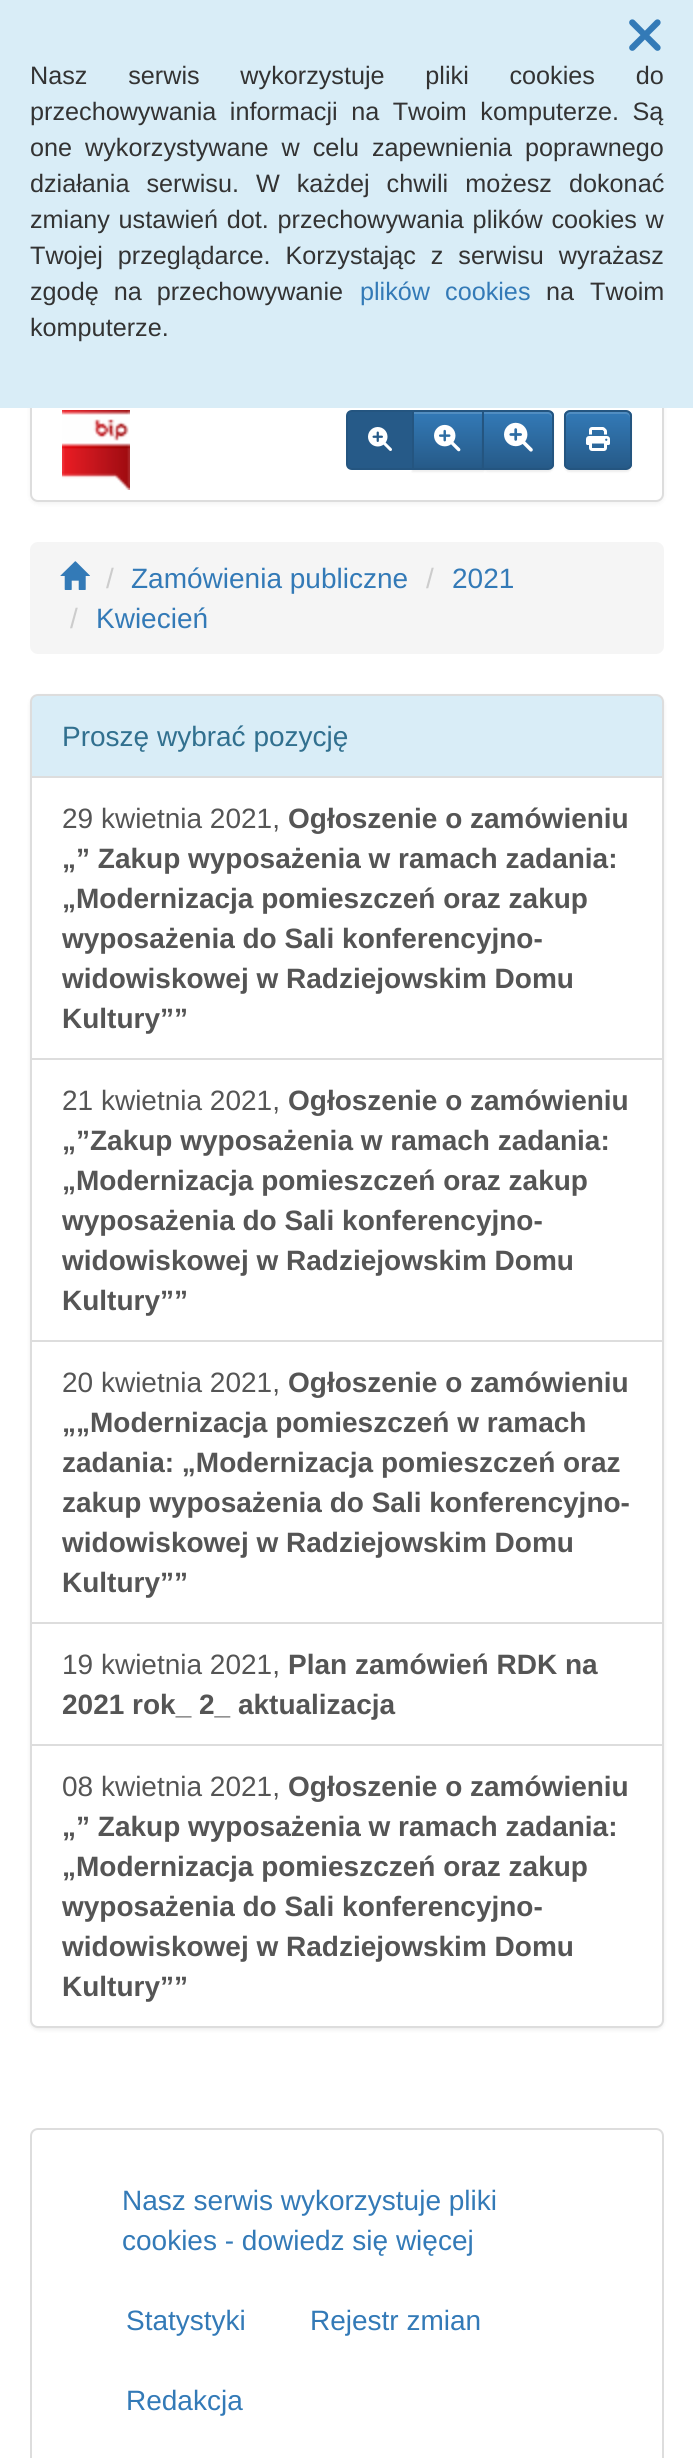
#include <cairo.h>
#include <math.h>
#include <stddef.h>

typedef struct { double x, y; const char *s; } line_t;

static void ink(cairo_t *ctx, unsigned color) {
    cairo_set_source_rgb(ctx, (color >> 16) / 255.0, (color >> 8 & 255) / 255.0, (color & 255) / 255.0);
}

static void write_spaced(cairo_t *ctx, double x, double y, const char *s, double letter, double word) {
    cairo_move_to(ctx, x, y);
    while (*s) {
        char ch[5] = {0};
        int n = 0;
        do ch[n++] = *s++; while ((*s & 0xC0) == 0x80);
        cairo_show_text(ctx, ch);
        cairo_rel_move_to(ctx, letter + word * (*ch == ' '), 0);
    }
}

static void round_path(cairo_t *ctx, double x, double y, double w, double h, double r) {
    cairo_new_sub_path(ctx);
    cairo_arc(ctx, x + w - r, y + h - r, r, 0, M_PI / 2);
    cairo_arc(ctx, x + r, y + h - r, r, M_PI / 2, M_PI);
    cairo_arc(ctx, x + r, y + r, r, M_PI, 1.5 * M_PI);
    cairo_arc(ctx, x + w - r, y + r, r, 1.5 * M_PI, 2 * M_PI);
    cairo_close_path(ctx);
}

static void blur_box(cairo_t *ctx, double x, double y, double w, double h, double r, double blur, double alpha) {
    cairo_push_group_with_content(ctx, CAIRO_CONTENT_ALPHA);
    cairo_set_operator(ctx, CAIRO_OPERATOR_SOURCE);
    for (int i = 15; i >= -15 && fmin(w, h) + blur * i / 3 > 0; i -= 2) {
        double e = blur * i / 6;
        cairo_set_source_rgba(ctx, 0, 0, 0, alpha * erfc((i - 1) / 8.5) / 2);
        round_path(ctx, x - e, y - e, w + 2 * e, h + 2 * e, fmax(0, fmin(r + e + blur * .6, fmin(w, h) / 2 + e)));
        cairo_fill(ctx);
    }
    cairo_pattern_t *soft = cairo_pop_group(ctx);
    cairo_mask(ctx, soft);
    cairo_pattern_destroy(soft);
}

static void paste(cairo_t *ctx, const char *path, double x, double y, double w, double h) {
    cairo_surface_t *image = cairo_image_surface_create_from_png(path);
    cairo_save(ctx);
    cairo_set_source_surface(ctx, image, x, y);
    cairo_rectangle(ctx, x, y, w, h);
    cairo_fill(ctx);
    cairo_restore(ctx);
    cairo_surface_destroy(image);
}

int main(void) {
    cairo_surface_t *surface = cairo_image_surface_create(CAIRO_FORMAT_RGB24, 693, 2458);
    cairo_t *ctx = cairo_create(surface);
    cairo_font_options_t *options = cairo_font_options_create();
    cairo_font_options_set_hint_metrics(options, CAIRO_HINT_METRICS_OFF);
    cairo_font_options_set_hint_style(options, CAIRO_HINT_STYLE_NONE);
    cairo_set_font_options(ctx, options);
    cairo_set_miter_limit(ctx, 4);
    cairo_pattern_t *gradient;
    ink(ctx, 0xFFFFFF);
    cairo_paint(ctx);
    ink(ctx, 0x000000);
    blur_box(ctx, 30, 380, 634, 124, 8, 2, 0.05);
    ink(ctx, 0xFFFFFF);
    round_path(ctx, 31, 379, 632, 122, 7);
    cairo_fill_preserve(ctx);
    ink(ctx, 0xDDDDDD);
    cairo_stroke(ctx);
    ink(ctx, 0xD9EDF7);
    cairo_rectangle(ctx, 0, 0, 693, 408);
    cairo_fill(ctx);
    paste(ctx, "media/1.png", 629, 19, 32, 32);
    cairo_select_font_face(ctx, "Liberation Sans", CAIRO_FONT_SLANT_NORMAL, CAIRO_FONT_WEIGHT_NORMAL);
    cairo_set_font_size(ctx, 25.2);
    ink(ctx, 0x333333);
    write_spaced(ctx, 30, 84, "Nasz serwis wykorzystuje pliki cookies do", 0, 33.75);
    write_spaced(ctx, 30, 120, "przechowywania informacji na Twoim komputerze. Są", 0, 6.5);
    write_spaced(ctx, 30, 156, "one wykorzystywane w celu zapewnienia poprawnego", 0, 6);
    write_spaced(ctx, 30, 192, "działania serwisu. W każdej chwili możesz dokonać", 0, 10);
    write_spaced(ctx, 30, 228, "zmiany ustawień dot. przechowywania plików cookies w", 0, 1.75);
    write_spaced(ctx, 30, 264, "Twojej przeglądarce. Korzystając z serwisu wyrażasz", 0, 8);
    write_spaced(ctx, 30, 300, "zgodę na przechowywanie", 0, 8);
    ink(ctx, 0x337AB7);
    write_spaced(ctx, 360, 300, "plików cookies", 0, 8);
    ink(ctx, 0x333333);
    write_spaced(ctx, 546, 300, "na Twoim", 0, 9);
    cairo_move_to(ctx, 30, 336);
    cairo_show_text(ctx, "komputerze.");
    paste(ctx, "media/2.png", 62, 410, 68, 80);
    ink(ctx, 0x000000);
    blur_box(ctx, 412, 412, 72, 60, 0, 1, 0.07);
    gradient = cairo_pattern_create_linear(448, 412, 448, 468);
    cairo_pattern_add_color_stop_rgba(gradient, 0, 0.2, 0.478, 0.718, 1);
    cairo_pattern_add_color_stop_rgba(gradient, 1, 0.149, 0.353, 0.533, 1);
    cairo_set_source(ctx, gradient);
    cairo_pattern_destroy(gradient);
    cairo_rectangle(ctx, 414, 414, 68, 54);
    cairo_fill(ctx);
    ink(ctx, 0x528EC1);
    cairo_rectangle(ctx, 414, 412, 68, 2);
    cairo_fill(ctx);
    cairo_rectangle(ctx, 413, 411, 70, 58);
    ink(ctx, 0x245580);
    cairo_stroke(ctx);
    ink(ctx, 0x265A88);
    cairo_new_path(ctx);
    cairo_move_to(ctx, 352, 411);
    cairo_line_to(ctx, 413, 411);
    cairo_line_to(ctx, 413, 469);
    cairo_line_to(ctx, 352, 469);
    cairo_curve_to(ctx, 349, 469, 347, 467, 347, 464);
    cairo_line_to(ctx, 347, 416);
    cairo_curve_to(ctx, 347, 413, 349, 411, 352, 411);
    cairo_close_path(ctx);
    cairo_fill_preserve(ctx);
    ink(ctx, 0x245580);
    cairo_stroke(ctx);
    paste(ctx, "media/3.png", 368, 427, 24, 24);
    paste(ctx, "media/4.png", 434, 424, 27, 28);
    ink(ctx, 0x000000);
    blur_box(ctx, 482, 412, 72, 60, 6, 1, 0.07);
    cairo_save(ctx);
    cairo_new_path(ctx);
    cairo_move_to(ctx, 482, 410);
    cairo_line_to(ctx, 548, 410);
    cairo_curve_to(ctx, 551.5, 410, 554, 412.5, 554, 416);
    cairo_line_to(ctx, 554, 464);
    cairo_curve_to(ctx, 554, 467.5, 551.5, 470, 548, 470);
    cairo_line_to(ctx, 482, 470);
    cairo_close_path(ctx);
    cairo_clip(ctx);
    gradient = cairo_pattern_create_linear(518, 412, 518, 468);
    cairo_pattern_add_color_stop_rgba(gradient, 0, 0.2, 0.478, 0.718, 1);
    cairo_pattern_add_color_stop_rgba(gradient, 1, 0.149, 0.353, 0.533, 1);
    cairo_set_source(ctx, gradient);
    cairo_pattern_destroy(gradient);
    cairo_rectangle(ctx, 484, 412, 70, 56);
    cairo_fill(ctx);
    cairo_restore(ctx);
    cairo_set_source_rgba(ctx, 1, 1, 1, 0.15);
    cairo_new_path(ctx);
    cairo_move_to(ctx, 484, 414);
    cairo_line_to(ctx, 548, 414);
    cairo_curve_to(ctx, 550, 414, 552, 416, 552, 418);
    cairo_line_to(ctx, 552, 416);
    cairo_curve_to(ctx, 552, 414, 550, 412, 548, 412);
    cairo_line_to(ctx, 484, 412);
    cairo_close_path(ctx);
    cairo_fill(ctx);
    cairo_new_path(ctx);
    cairo_move_to(ctx, 483, 411);
    cairo_line_to(ctx, 548, 411);
    cairo_curve_to(ctx, 551, 411, 553, 413, 553, 416);
    cairo_line_to(ctx, 553, 464);
    cairo_curve_to(ctx, 553, 467, 551, 469, 548, 469);
    cairo_line_to(ctx, 483, 469);
    cairo_close_path(ctx);
    ink(ctx, 0x245580);
    cairo_stroke(ctx);
    paste(ctx, "media/5.png", 504, 422, 29, 30);
    ink(ctx, 0x000000);
    blur_box(ctx, 564, 412, 68, 60, 6, 1, 0.07);
    cairo_save(ctx);
    round_path(ctx, 564, 410, 68, 60, 6);
    cairo_clip(ctx);
    gradient = cairo_pattern_create_linear(598, 412, 598, 468);
    cairo_pattern_add_color_stop_rgba(gradient, 0, 0.2, 0.478, 0.718, 1);
    cairo_pattern_add_color_stop_rgba(gradient, 1, 0.149, 0.353, 0.533, 1);
    cairo_set_source(ctx, gradient);
    cairo_pattern_destroy(gradient);
    cairo_rectangle(ctx, 564, 412, 68, 56);
    cairo_fill(ctx);
    cairo_restore(ctx);
    cairo_set_source_rgba(ctx, 1, 1, 1, 0.15);
    cairo_new_path(ctx);
    cairo_move_to(ctx, 570, 414);
    cairo_line_to(ctx, 626, 414);
    cairo_curve_to(ctx, 628, 414, 630, 416, 630, 418);
    cairo_curve_to(ctx, 630, 410, 624, 412, 617, 412);
    cairo_line_to(ctx, 579, 412);
    cairo_curve_to(ctx, 572, 412, 566, 410, 566, 418);
    cairo_curve_to(ctx, 566, 416, 568, 414, 570, 414);
    cairo_close_path(ctx);
    cairo_fill(ctx);
    round_path(ctx, 565, 411, 66, 58, 5);
    ink(ctx, 0x245580);
    cairo_stroke(ctx);
    paste(ctx, "media/6.png", 586, 427, 24, 24);
    ink(ctx, 0xF5F5F5);
    round_path(ctx, 30, 542, 634, 112, 8);
    cairo_fill(ctx);
    paste(ctx, "media/7.png", 60, 561, 30, 29);
    cairo_set_font_size(ctx, 28);
    ink(ctx, 0xCCCCCC);
    cairo_move_to(ctx, 106, 588);
    cairo_show_text(ctx, "/");
    ink(ctx, 0x337AB7);
    cairo_move_to(ctx, 131, 588);
    cairo_show_text(ctx, "Zamówienia publiczne");
    ink(ctx, 0xCCCCCC);
    cairo_move_to(ctx, 426, 588);
    cairo_show_text(ctx, "/");
    ink(ctx, 0x337AB7);
    cairo_move_to(ctx, 452, 588);
    cairo_show_text(ctx, "2021");
    ink(ctx, 0xCCCCCC);
    cairo_move_to(ctx, 70, 628);
    cairo_show_text(ctx, "/");
    ink(ctx, 0x337AB7);
    cairo_move_to(ctx, 96, 628);
    cairo_show_text(ctx, "Kwiecień");
    ink(ctx, 0x000000);
    blur_box(ctx, 30, 696, 634, 1334, 8, 2, 0.07);
    ink(ctx, 0xD9EDF7);
    cairo_new_path(ctx);
    cairo_move_to(ctx, 38, 695);
    cairo_line_to(ctx, 656, 695);
    cairo_curve_to(ctx, 660, 695, 663, 698, 663, 702);
    cairo_line_to(ctx, 663, 777);
    cairo_line_to(ctx, 31, 777);
    cairo_line_to(ctx, 31, 702);
    cairo_curve_to(ctx, 31, 698, 34, 695, 38, 695);
    cairo_close_path(ctx);
    cairo_fill_preserve(ctx);
    ink(ctx, 0xDDDDDD);
    cairo_stroke(ctx);
    ink(ctx, 0x31708F);
    cairo_move_to(ctx, 62, 746);
    cairo_show_text(ctx, "Proszę wybrać pozycję");
    ink(ctx, 0xFFFFFF);
    cairo_rectangle(ctx, 31, 777, 632, 282);
    cairo_fill_preserve(ctx);
    ink(ctx, 0xDDDDDD);
    cairo_stroke(ctx);
    ink(ctx, 0x555555);
    cairo_move_to(ctx, 62, 828);
    cairo_show_text(ctx, "29 kwietnia 2021,");
    cairo_select_font_face(ctx, "Liberation Sans", CAIRO_FONT_SLANT_NORMAL, CAIRO_FONT_WEIGHT_BOLD);
    {
        static const line_t items[] = {
            {288, 828, "Ogłoszenie o zamówieniu"},
            {62, 868, "„” Zakup wyposażenia w ramach zadania:"},
            {62, 908, "„Modernizacja pomieszczeń oraz zakup"},
            {62, 948, "wyposażenia do Sali konferencyjno-"},
            {62, 988, "widowiskowej w Radziejowskim Domu"},
            {62, 1028, "Kultury””"},
        };
        for (size_t i = 0; i < sizeof items / sizeof *items; i++) {
            cairo_move_to(ctx, items[i].x, items[i].y);
            cairo_show_text(ctx, items[i].s);
        }
    }
    ink(ctx, 0xFFFFFF);
    cairo_rectangle(ctx, 31, 1059, 632, 282);
    cairo_fill_preserve(ctx);
    ink(ctx, 0xDDDDDD);
    cairo_stroke(ctx);
    cairo_select_font_face(ctx, "Liberation Sans", CAIRO_FONT_SLANT_NORMAL, CAIRO_FONT_WEIGHT_NORMAL);
    ink(ctx, 0x555555);
    cairo_move_to(ctx, 62, 1110);
    cairo_show_text(ctx, "21 kwietnia 2021,");
    cairo_select_font_face(ctx, "Liberation Sans", CAIRO_FONT_SLANT_NORMAL, CAIRO_FONT_WEIGHT_BOLD);
    {
        static const line_t items[] = {
            {288, 1110, "Ogłoszenie o zamówieniu"},
            {62, 1150, "„”Zakup wyposażenia w ramach zadania:"},
            {62, 1190, "„Modernizacja pomieszczeń oraz zakup"},
            {62, 1230, "wyposażenia do Sali konferencyjno-"},
            {62, 1270, "widowiskowej w Radziejowskim Domu"},
            {62, 1310, "Kultury””"},
        };
        for (size_t i = 0; i < sizeof items / sizeof *items; i++) {
            cairo_move_to(ctx, items[i].x, items[i].y);
            cairo_show_text(ctx, items[i].s);
        }
    }
    ink(ctx, 0xFFFFFF);
    cairo_rectangle(ctx, 31, 1341, 632, 282);
    cairo_fill_preserve(ctx);
    ink(ctx, 0xDDDDDD);
    cairo_stroke(ctx);
    cairo_select_font_face(ctx, "Liberation Sans", CAIRO_FONT_SLANT_NORMAL, CAIRO_FONT_WEIGHT_NORMAL);
    ink(ctx, 0x555555);
    cairo_move_to(ctx, 62, 1392);
    cairo_show_text(ctx, "20 kwietnia 2021,");
    cairo_select_font_face(ctx, "Liberation Sans", CAIRO_FONT_SLANT_NORMAL, CAIRO_FONT_WEIGHT_BOLD);
    {
        static const line_t items[] = {
            {288, 1392, "Ogłoszenie o zamówieniu"},
            {62, 1432, "„„Modernizacja pomieszczeń w ramach"},
            {62, 1472, "zadania: „Modernizacja pomieszczeń oraz"},
            {62, 1512, "zakup wyposażenia do Sali konferencyjno-"},
            {62, 1552, "widowiskowej w Radziejowskim Domu"},
            {62, 1592, "Kultury””"},
        };
        for (size_t i = 0; i < sizeof items / sizeof *items; i++) {
            cairo_move_to(ctx, items[i].x, items[i].y);
            cairo_show_text(ctx, items[i].s);
        }
    }
    ink(ctx, 0xFFFFFF);
    cairo_rectangle(ctx, 31, 1623, 632, 122);
    cairo_fill_preserve(ctx);
    ink(ctx, 0xDDDDDD);
    cairo_stroke(ctx);
    cairo_select_font_face(ctx, "Liberation Sans", CAIRO_FONT_SLANT_NORMAL, CAIRO_FONT_WEIGHT_NORMAL);
    ink(ctx, 0x555555);
    cairo_move_to(ctx, 62, 1674);
    cairo_show_text(ctx, "19 kwietnia 2021,");
    cairo_select_font_face(ctx, "Liberation Sans", CAIRO_FONT_SLANT_NORMAL, CAIRO_FONT_WEIGHT_BOLD);
    cairo_move_to(ctx, 288, 1674);
    cairo_show_text(ctx, "Plan zamówień RDK na");
    cairo_move_to(ctx, 62, 1714);
    cairo_show_text(ctx, "2021 rok_ 2_ aktualizacja");
    ink(ctx, 0xFFFFFF);
    cairo_new_path(ctx);
    cairo_move_to(ctx, 31, 1745);
    cairo_line_to(ctx, 663, 1745);
    cairo_line_to(ctx, 663, 2020);
    cairo_curve_to(ctx, 663, 2024, 660, 2027, 656, 2027);
    cairo_line_to(ctx, 38, 2027);
    cairo_curve_to(ctx, 34, 2027, 31, 2024, 31, 2020);
    cairo_close_path(ctx);
    cairo_fill_preserve(ctx);
    ink(ctx, 0xDDDDDD);
    cairo_stroke(ctx);
    cairo_select_font_face(ctx, "Liberation Sans", CAIRO_FONT_SLANT_NORMAL, CAIRO_FONT_WEIGHT_NORMAL);
    ink(ctx, 0x555555);
    cairo_move_to(ctx, 62, 1796);
    cairo_show_text(ctx, "08 kwietnia 2021,");
    cairo_select_font_face(ctx, "Liberation Sans", CAIRO_FONT_SLANT_NORMAL, CAIRO_FONT_WEIGHT_BOLD);
    {
        static const line_t items[] = {
            {288, 1796, "Ogłoszenie o zamówieniu"},
            {62, 1836, "„” Zakup wyposażenia w ramach zadania:"},
            {62, 1876, "„Modernizacja pomieszczeń oraz zakup"},
            {62, 1916, "wyposażenia do Sali konferencyjno-"},
            {62, 1956, "widowiskowej w Radziejowskim Domu"},
            {62, 1996, "Kultury””"},
        };
        for (size_t i = 0; i < sizeof items / sizeof *items; i++) {
            cairo_move_to(ctx, items[i].x, items[i].y);
            cairo_show_text(ctx, items[i].s);
        }
    }
    round_path(ctx, 31, 2129, 632, 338, 7);
    ink(ctx, 0xDDDDDD);
    cairo_stroke(ctx);
    cairo_select_font_face(ctx, "Liberation Sans", CAIRO_FONT_SLANT_NORMAL, CAIRO_FONT_WEIGHT_NORMAL);
    ink(ctx, 0x337AB7);
    {
        static const line_t items[] = {
            {122, 2210, "Nasz serwis wykorzystuje pliki"},
            {122, 2250, "cookies - dowiedz się więcej"},
            {126, 2330, "Statystyki"},
            {310, 2330, "Rejestr zmian"},
            {126, 2410, "Redakcja"},
        };
        for (size_t i = 0; i < sizeof items / sizeof *items; i++) {
            cairo_move_to(ctx, items[i].x, items[i].y);
            cairo_show_text(ctx, items[i].s);
        }
    }
    cairo_surface_write_to_png(surface, "image.png");
    cairo_font_options_destroy(options);
    cairo_destroy(ctx);
    cairo_surface_destroy(surface);
    return 0;
}
